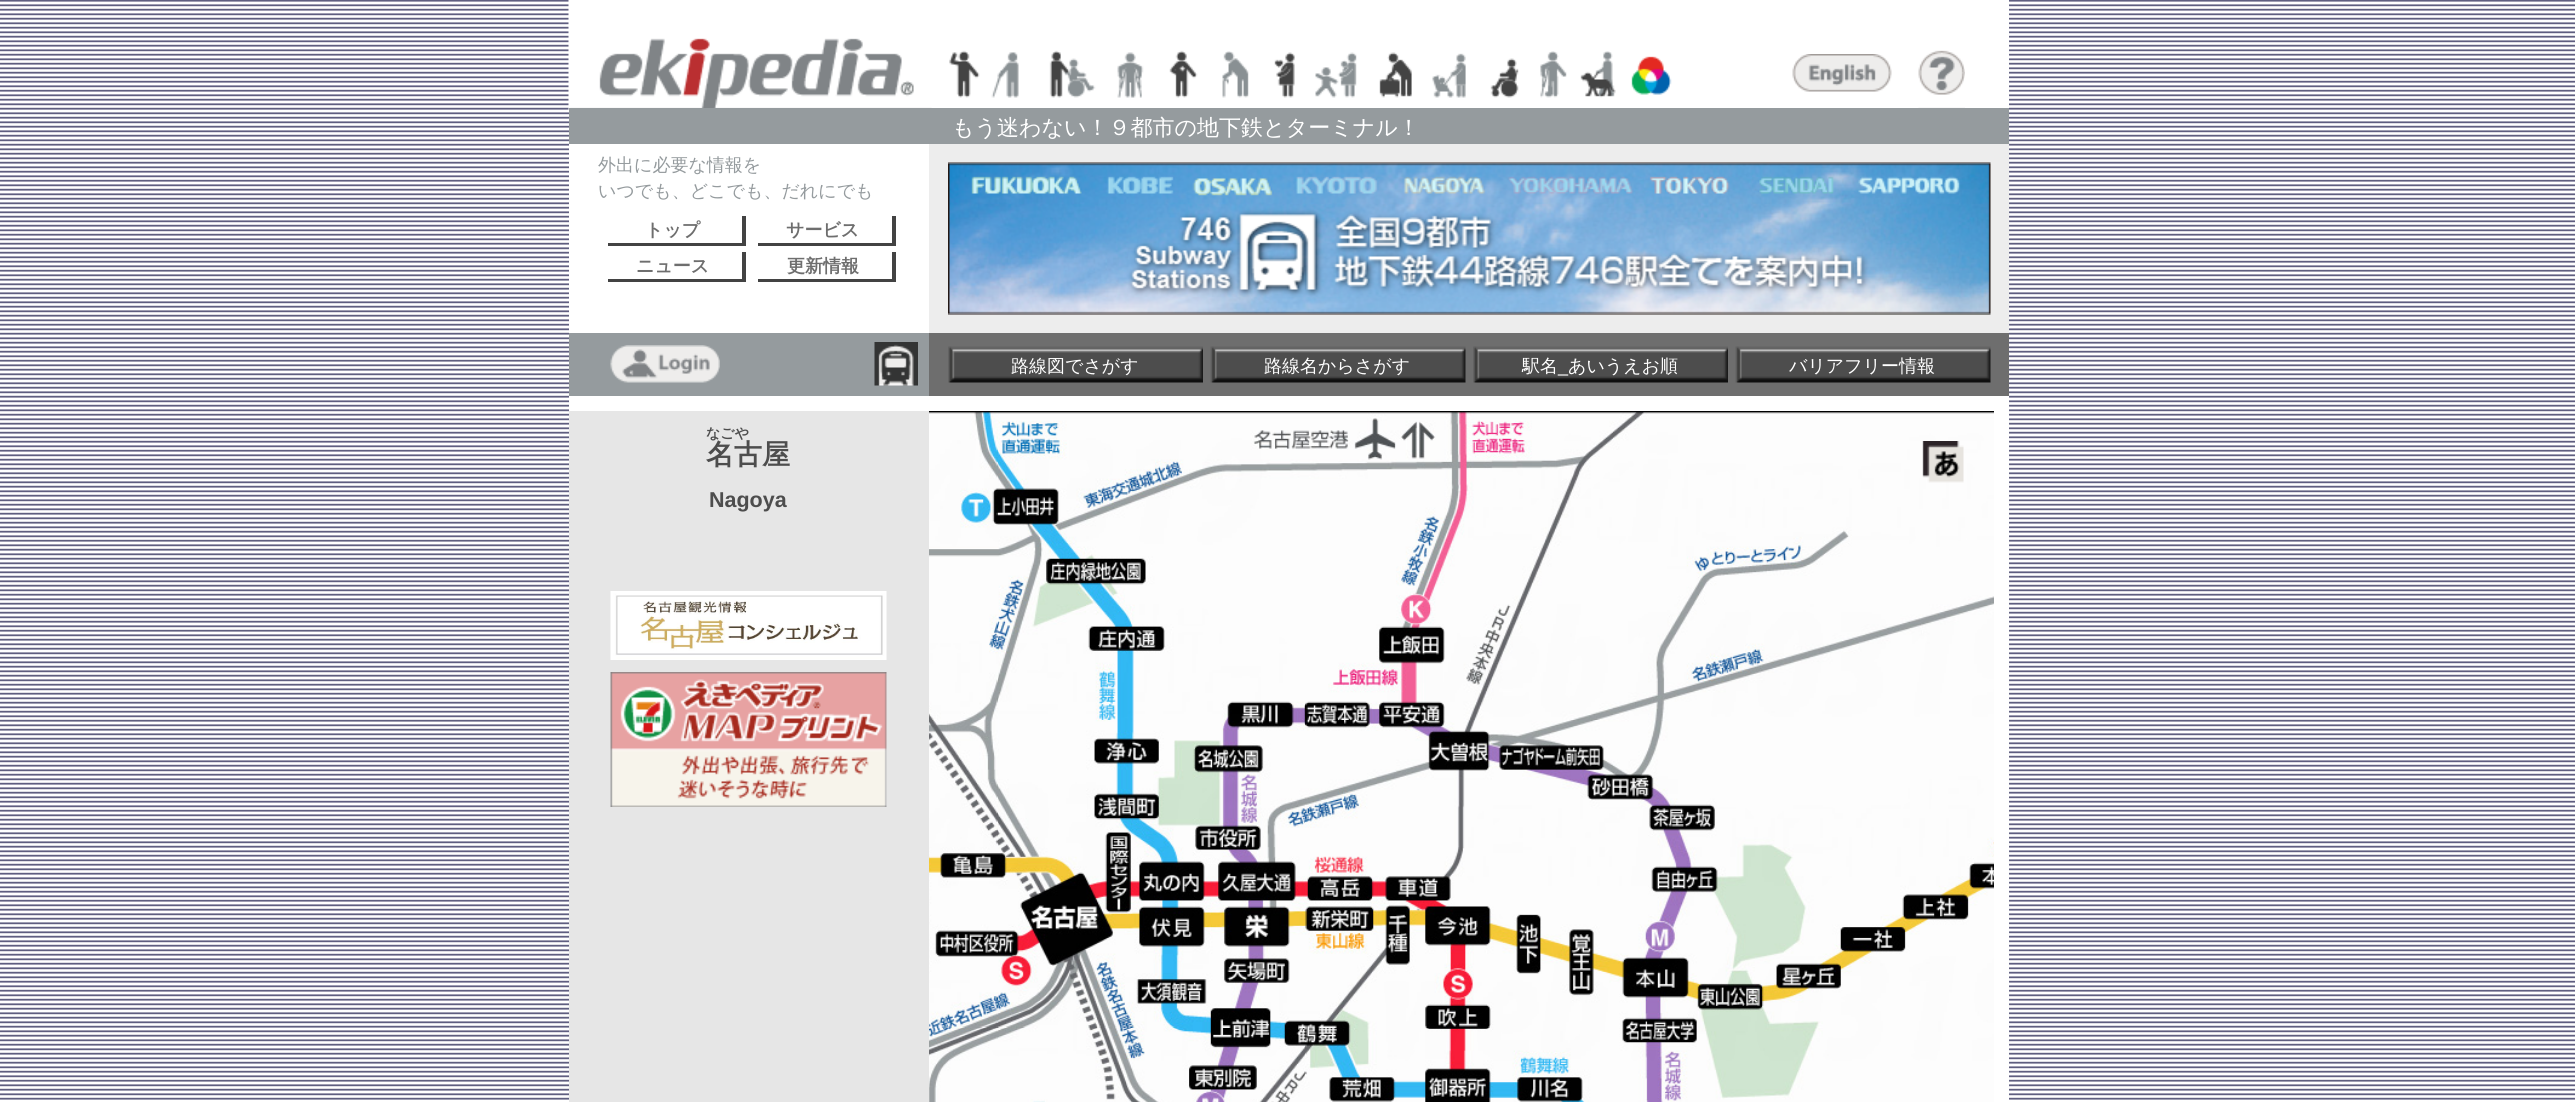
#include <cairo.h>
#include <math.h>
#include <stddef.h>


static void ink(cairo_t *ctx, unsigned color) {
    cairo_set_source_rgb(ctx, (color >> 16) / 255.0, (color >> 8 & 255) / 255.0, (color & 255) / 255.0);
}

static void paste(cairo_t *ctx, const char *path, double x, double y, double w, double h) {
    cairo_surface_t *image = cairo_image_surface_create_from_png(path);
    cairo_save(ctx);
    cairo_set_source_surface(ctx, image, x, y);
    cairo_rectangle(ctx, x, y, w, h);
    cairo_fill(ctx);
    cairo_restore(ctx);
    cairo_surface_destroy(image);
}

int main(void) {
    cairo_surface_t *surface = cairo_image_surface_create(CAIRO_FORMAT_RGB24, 2575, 1102);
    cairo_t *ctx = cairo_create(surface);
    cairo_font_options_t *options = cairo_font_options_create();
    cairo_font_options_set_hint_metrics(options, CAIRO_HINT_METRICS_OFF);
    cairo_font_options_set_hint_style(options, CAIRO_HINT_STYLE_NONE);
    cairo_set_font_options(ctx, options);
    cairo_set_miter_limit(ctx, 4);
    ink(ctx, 0xFFFFFF);
    cairo_paint(ctx);
    paste(ctx, "media/1.png", 0, 0, 2575, 1102);
    ink(ctx, 0xFFFFFF);
    cairo_rectangle(ctx, 569, 0, 1440, 1100);
    cairo_fill(ctx);
    paste(ctx, "media/2.png", 568, 0, 364, 111);
    paste(ctx, "media/3.png", 936, 50, 50, 58);
    paste(ctx, "media/4.png", 990, 52, 50, 56);
    paste(ctx, "media/5.png", 1045, 50, 58, 58);
    paste(ctx, "media/6.png", 1107, 52, 45, 56);
    paste(ctx, "media/7.png", 1156, 50, 47, 58);
    paste(ctx, "media/8.png", 1209, 51, 50, 57);
    paste(ctx, "media/9.png", 1263, 52, 45, 56);
    paste(ctx, "media/10.png", 1312, 52, 55, 56);
    paste(ctx, "media/11.png", 1372, 52, 50, 56);
    paste(ctx, "media/12.png", 1426, 53, 50, 55);
    paste(ctx, "media/13.png", 1480, 58, 50, 50);
    paste(ctx, "media/14.png", 1536, 51, 35, 57);
    paste(ctx, "media/15.png", 1575, 51, 50, 57);
    paste(ctx, "media/16.png", 1629, 56, 47, 52);
    paste(ctx, "media/17.png", 1792, 54, 100, 38);
    paste(ctx, "media/18.png", 1918, 50, 47, 58);
    ink(ctx, 0x959B9E);
    cairo_rectangle(ctx, 569, 108, 1440, 36);
    cairo_fill(ctx);
    cairo_select_font_face(ctx, "WenQuanYi Zen Hei Medium", CAIRO_FONT_SLANT_NORMAL, CAIRO_FONT_WEIGHT_NORMAL);
    cairo_set_font_size(ctx, 22);
    ink(ctx, 0xFFFFFF);
    cairo_move_to(ctx, 952, 135);
    cairo_show_text(ctx, "もう迷わない！９都市の地下鉄とターミナル！");
    cairo_set_font_size(ctx, 18);
    ink(ctx, 0x959B9E);
    cairo_move_to(ctx, 598, 171);
    cairo_show_text(ctx, "外出に必要な情報を");
    cairo_move_to(ctx, 598, 197);
    cairo_show_text(ctx, "いつでも、どこでも、だれにでも");
    ink(ctx, 0x434343);
    cairo_new_path(ctx);
    cairo_move_to(ctx, 608, 243);
    cairo_line_to(ctx, 608, 246);
    cairo_line_to(ctx, 746, 246);
    cairo_line_to(ctx, 746, 216);
    cairo_line_to(ctx, 742, 216);
    cairo_line_to(ctx, 742, 243);
    cairo_close_path(ctx);
    cairo_fill(ctx);
    cairo_select_font_face(ctx, "WenQuanYi Zen Hei", CAIRO_FONT_SLANT_NORMAL, CAIRO_FONT_WEIGHT_BOLD);
    ink(ctx, 0x6E6E6E);
    cairo_move_to(ctx, 645, 236);
    cairo_show_text(ctx, "トップ");
    ink(ctx, 0x434343);
    cairo_new_path(ctx);
    cairo_move_to(ctx, 758, 243);
    cairo_line_to(ctx, 758, 246);
    cairo_line_to(ctx, 896, 246);
    cairo_line_to(ctx, 896, 216);
    cairo_line_to(ctx, 892, 216);
    cairo_line_to(ctx, 892, 243);
    cairo_close_path(ctx);
    cairo_fill(ctx);
    ink(ctx, 0x6E6E6E);
    cairo_move_to(ctx, 786, 236);
    cairo_show_text(ctx, "サービス");
    ink(ctx, 0x434343);
    cairo_new_path(ctx);
    cairo_move_to(ctx, 608, 279);
    cairo_line_to(ctx, 608, 282);
    cairo_line_to(ctx, 746, 282);
    cairo_line_to(ctx, 746, 252);
    cairo_line_to(ctx, 742, 252);
    cairo_line_to(ctx, 742, 279);
    cairo_close_path(ctx);
    cairo_fill(ctx);
    ink(ctx, 0x6E6E6E);
    cairo_move_to(ctx, 636, 272);
    cairo_show_text(ctx, "ニュース");
    ink(ctx, 0x434343);
    cairo_new_path(ctx);
    cairo_move_to(ctx, 758, 279);
    cairo_line_to(ctx, 758, 282);
    cairo_line_to(ctx, 896, 282);
    cairo_line_to(ctx, 896, 252);
    cairo_line_to(ctx, 892, 252);
    cairo_line_to(ctx, 892, 279);
    cairo_close_path(ctx);
    cairo_fill(ctx);
    ink(ctx, 0x6E6E6E);
    cairo_move_to(ctx, 787, 272);
    cairo_show_text(ctx, "更新情報");
    ink(ctx, 0xEDEDED);
    cairo_rectangle(ctx, 929, 144, 1080, 189);
    cairo_fill(ctx);
    paste(ctx, "media/19.png", 948, 162, 1043, 153);
    ink(ctx, 0x959B9E);
    cairo_rectangle(ctx, 569, 333, 360, 63);
    cairo_fill(ctx);
    paste(ctx, "media/20.png", 610, 345, 110, 38);
    paste(ctx, "media/21.png", 874, 342, 44, 44);
    ink(ctx, 0x6E6E6E);
    cairo_rectangle(ctx, 929, 333, 1080, 63);
    cairo_fill(ctx);
    paste(ctx, "media/22.png", 948, 346, 255, 37);
    cairo_select_font_face(ctx, "WenQuanYi Zen Hei Medium", CAIRO_FONT_SLANT_NORMAL, CAIRO_FONT_WEIGHT_NORMAL);
    ink(ctx, 0xFFFFFF);
    cairo_move_to(ctx, 1011, 372);
    cairo_show_text(ctx, "路線図でさがす");
    paste(ctx, "media/23.png", 1210, 346, 256, 37);
    cairo_move_to(ctx, 1264, 372);
    cairo_show_text(ctx, "路線名からさがす");
    paste(ctx, "media/24.png", 1473, 346, 255, 37);
    cairo_move_to(ctx, 1522, 372);
    cairo_show_text(ctx, "駅名");
    cairo_select_font_face(ctx, "Liberation Sans", CAIRO_FONT_SLANT_NORMAL, CAIRO_FONT_WEIGHT_NORMAL);
    cairo_move_to(ctx, 1558, 372);
    cairo_show_text(ctx, "_");
    cairo_select_font_face(ctx, "WenQuanYi Zen Hei Medium", CAIRO_FONT_SLANT_NORMAL, CAIRO_FONT_WEIGHT_NORMAL);
    cairo_move_to(ctx, 1568, 372);
    cairo_show_text(ctx, "あいうえお順");
    paste(ctx, "media/23.png", 1735, 346, 256, 37);
    cairo_move_to(ctx, 1789, 372);
    cairo_show_text(ctx, "バリアフリー情報");
    ink(ctx, 0xE6E6E6);
    cairo_rectangle(ctx, 569, 411, 360, 691);
    cairo_fill(ctx);
    cairo_select_font_face(ctx, "WenQuanYi Zen Hei", CAIRO_FONT_SLANT_NORMAL, CAIRO_FONT_WEIGHT_BOLD);
    cairo_set_font_size(ctx, 14);
    ink(ctx, 0x4D4D4D);
    cairo_move_to(ctx, 706, 438);
    cairo_show_text(ctx, "なごや");
    cairo_set_font_size(ctx, 28);
    cairo_move_to(ctx, 706, 464);
    cairo_show_text(ctx, "名古屋");
    cairo_select_font_face(ctx, "Liberation Sans", CAIRO_FONT_SLANT_NORMAL, CAIRO_FONT_WEIGHT_BOLD);
    cairo_set_font_size(ctx, 21.5);
    cairo_move_to(ctx, 709, 507);
    cairo_show_text(ctx, "Nagoya");
    paste(ctx, "media/25.png", 610, 591, 277, 69);
    paste(ctx, "media/26.png", 610, 672, 277, 135);
    paste(ctx, "media/27.png", 929, 411, 1065, 691);
    paste(ctx, "media/28.png", 1922, 441, 42, 42);
    cairo_surface_write_to_png(surface, "image.png");
    cairo_font_options_destroy(options);
    cairo_destroy(ctx);
    cairo_surface_destroy(surface);
    return 0;
}
